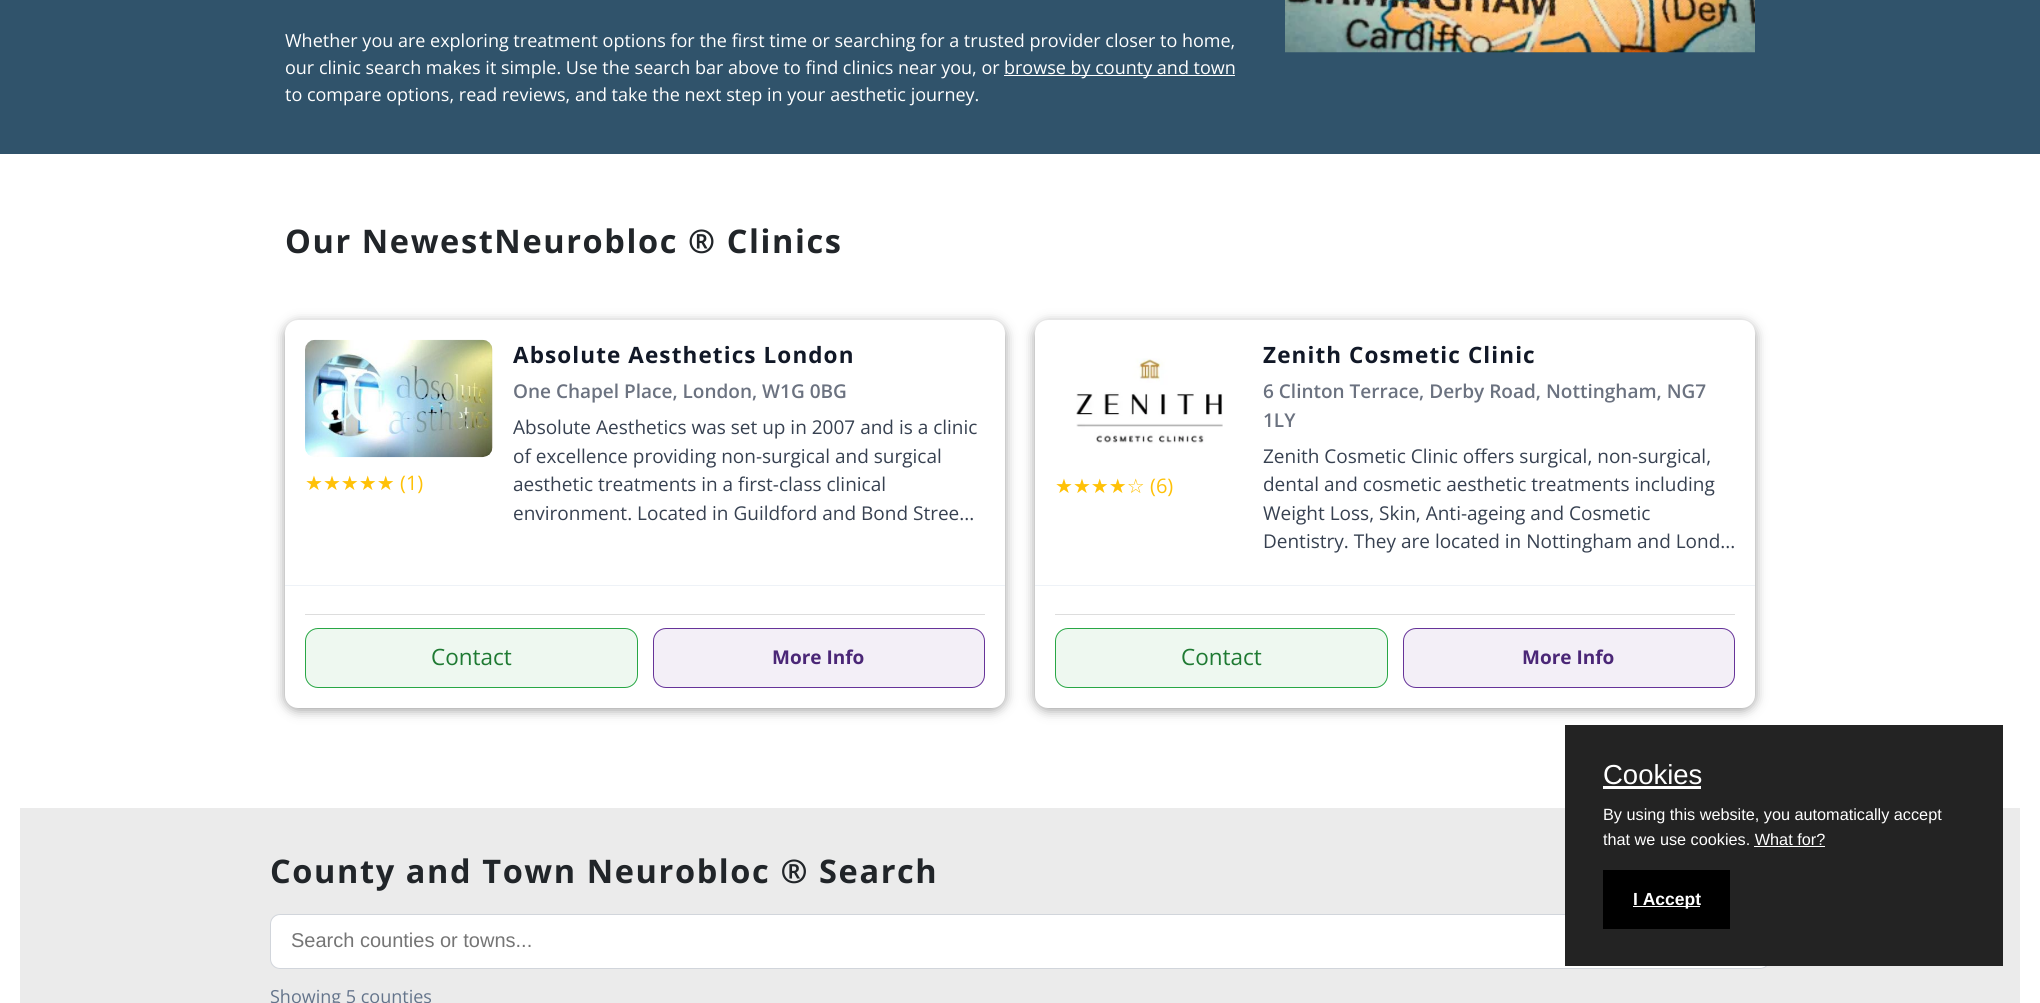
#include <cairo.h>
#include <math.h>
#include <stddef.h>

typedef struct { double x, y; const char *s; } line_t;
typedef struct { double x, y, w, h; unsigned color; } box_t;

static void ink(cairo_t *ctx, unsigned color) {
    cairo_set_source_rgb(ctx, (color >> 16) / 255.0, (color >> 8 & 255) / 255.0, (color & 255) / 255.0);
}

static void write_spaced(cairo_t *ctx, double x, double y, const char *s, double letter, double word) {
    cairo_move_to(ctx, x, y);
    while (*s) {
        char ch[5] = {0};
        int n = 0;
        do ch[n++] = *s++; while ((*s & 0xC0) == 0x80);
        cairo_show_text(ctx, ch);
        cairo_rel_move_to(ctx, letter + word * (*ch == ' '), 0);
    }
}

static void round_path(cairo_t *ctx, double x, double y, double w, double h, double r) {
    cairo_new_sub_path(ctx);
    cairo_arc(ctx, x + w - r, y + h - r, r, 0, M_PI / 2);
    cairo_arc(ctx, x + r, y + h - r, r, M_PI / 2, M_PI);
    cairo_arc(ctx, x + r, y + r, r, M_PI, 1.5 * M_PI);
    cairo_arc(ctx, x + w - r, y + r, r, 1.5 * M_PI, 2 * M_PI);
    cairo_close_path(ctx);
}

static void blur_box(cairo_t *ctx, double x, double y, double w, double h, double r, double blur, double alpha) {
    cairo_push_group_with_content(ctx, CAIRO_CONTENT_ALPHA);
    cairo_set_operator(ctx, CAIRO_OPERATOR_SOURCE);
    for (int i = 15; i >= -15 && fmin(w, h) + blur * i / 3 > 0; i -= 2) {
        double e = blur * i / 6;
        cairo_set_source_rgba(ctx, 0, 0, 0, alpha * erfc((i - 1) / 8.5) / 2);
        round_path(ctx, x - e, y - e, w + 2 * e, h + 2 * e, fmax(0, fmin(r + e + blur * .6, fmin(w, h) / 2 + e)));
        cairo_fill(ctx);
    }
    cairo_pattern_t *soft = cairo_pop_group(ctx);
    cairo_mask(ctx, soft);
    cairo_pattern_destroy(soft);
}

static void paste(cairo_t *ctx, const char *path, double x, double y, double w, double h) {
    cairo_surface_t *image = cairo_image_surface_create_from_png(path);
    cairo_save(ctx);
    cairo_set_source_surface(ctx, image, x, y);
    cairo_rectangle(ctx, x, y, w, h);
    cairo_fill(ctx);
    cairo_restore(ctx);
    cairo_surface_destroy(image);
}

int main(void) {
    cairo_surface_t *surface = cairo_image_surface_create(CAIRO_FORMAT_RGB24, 2040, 1003);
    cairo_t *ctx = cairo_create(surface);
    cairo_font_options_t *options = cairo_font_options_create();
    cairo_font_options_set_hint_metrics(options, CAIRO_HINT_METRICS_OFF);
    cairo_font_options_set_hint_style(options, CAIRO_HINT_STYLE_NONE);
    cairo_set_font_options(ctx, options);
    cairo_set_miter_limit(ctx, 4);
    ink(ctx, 0xFFFFFF);
    cairo_paint(ctx);
    ink(ctx, 0x30536B);
    cairo_rectangle(ctx, 0, 0, 2040, 154);
    cairo_fill(ctx);
    paste(ctx, "media/1.png", 1285, 0, 470, 53);
    cairo_select_font_face(ctx, "Open Sans", CAIRO_FONT_SLANT_NORMAL, CAIRO_FONT_WEIGHT_NORMAL);
    cairo_set_font_size(ctx, 18);
    ink(ctx, 0xFFFFFF);
    cairo_move_to(ctx, 285, 47);
    cairo_show_text(ctx, "Whether you are exploring treatment options for the first time or searching for a trusted provider closer to home,");
    cairo_move_to(ctx, 285, 74);
    cairo_show_text(ctx, "our clinic search makes it simple. Use the search bar above to find clinics near you, or");
    cairo_rectangle(ctx, 1004, 75, 231, 1);
    cairo_fill(ctx);
    cairo_move_to(ctx, 1004, 74);
    cairo_show_text(ctx, "browse by county and town");
    cairo_move_to(ctx, 285, 101);
    cairo_show_text(ctx, "to compare options, read reviews, and take the next step in your aesthetic journey.");
    cairo_select_font_face(ctx, "Open Sans", CAIRO_FONT_SLANT_NORMAL, CAIRO_FONT_WEIGHT_BOLD);
    cairo_set_font_size(ctx, 32.5);
    ink(ctx, 0x212529);
    write_spaced(ctx, 285, 253, "Our NewestNeurobloc ® Clinics", 1.6, 0);
    ink(ctx, 0x000000);
    blur_box(ctx, 285, 323, 720, 387, 13, 6, 0.4);
    ink(ctx, 0xFFFFFF);
    round_path(ctx, 285, 320, 720, 388, 13);
    cairo_fill(ctx);
    paste(ctx, "media/2.png", 305, 339, 188, 119);
    cairo_select_font_face(ctx, "DejaVu Sans", CAIRO_FONT_SLANT_NORMAL, CAIRO_FONT_WEIGHT_NORMAL);
    cairo_set_font_size(ctx, 20);
    ink(ctx, 0xFFC107);
    cairo_move_to(ctx, 305, 490);
    cairo_show_text(ctx, "★★★★★");
    cairo_select_font_face(ctx, "Open Sans", CAIRO_FONT_SLANT_NORMAL, CAIRO_FONT_WEIGHT_NORMAL);
    cairo_move_to(ctx, 400, 490);
    cairo_show_text(ctx, "(1)");
    cairo_select_font_face(ctx, "Open Sans", CAIRO_FONT_SLANT_NORMAL, CAIRO_FONT_WEIGHT_BOLD);
    cairo_set_font_size(ctx, 22.5);
    ink(ctx, 0x111827);
    write_spaced(ctx, 513, 363, "Absolute Aesthetics London", 1.1, 0);
    cairo_select_font_face(ctx, "Open Sans SemiBold", CAIRO_FONT_SLANT_NORMAL, CAIRO_FONT_WEIGHT_NORMAL);
    cairo_set_font_size(ctx, 19);
    ink(ctx, 0x6B7280);
    cairo_move_to(ctx, 513, 398);
    cairo_show_text(ctx, "One Chapel Place, London, W1G 0BG");
    cairo_select_font_face(ctx, "Open Sans", CAIRO_FONT_SLANT_NORMAL, CAIRO_FONT_WEIGHT_NORMAL);
    ink(ctx, 0x374151);
    {
        static const line_t items[] = {
            {513, 434, "Absolute Aesthetics was set up in 2007 and is a clinic"},
            {513, 463, "of excellence providing non-surgical and surgical"},
            {513, 491, "aesthetic treatments in a first-class clinical"},
            {513, 520, "environment. Located in Guildford and Bond Stree..."},
        };
        for (size_t i = 0; i < sizeof items / sizeof *items; i++) {
            cairo_move_to(ctx, items[i].x, items[i].y);
            cairo_show_text(ctx, items[i].s);
        }
    }
    ink(ctx, 0xEEF2F7);
    cairo_rectangle(ctx, 285, 585, 720, 1);
    cairo_fill(ctx);
    ink(ctx, 0xDDDDDD);
    cairo_rectangle(ctx, 305, 614, 680, 1);
    cairo_fill(ctx);
    ink(ctx, 0xEEF8F0);
    round_path(ctx, 305.5, 628.5, 332, 59, 12.5);
    cairo_fill_preserve(ctx);
    ink(ctx, 0x28A745);
    cairo_set_line_width(ctx, 1);
    cairo_stroke(ctx);
    cairo_set_font_size(ctx, 22.5);
    ink(ctx, 0x1F7A33);
    cairo_move_to(ctx, 431, 665);
    cairo_show_text(ctx, "Contact");
    ink(ctx, 0xF3EFF7);
    round_path(ctx, 653.5, 628.5, 331, 59, 12.5);
    cairo_fill_preserve(ctx);
    ink(ctx, 0x663399);
    cairo_stroke(ctx);
    cairo_select_font_face(ctx, "Open Sans", CAIRO_FONT_SLANT_NORMAL, CAIRO_FONT_WEIGHT_BOLD);
    cairo_set_font_size(ctx, 19);
    ink(ctx, 0x4B2777);
    cairo_move_to(ctx, 772, 664);
    cairo_show_text(ctx, "More Info");
    ink(ctx, 0x000000);
    blur_box(ctx, 1035, 323, 720, 387, 13, 6, 0.4);
    ink(ctx, 0xFFFFFF);
    round_path(ctx, 1035, 320, 720, 388, 13);
    cairo_fill(ctx);
    paste(ctx, "media/3.png", 1076, 358, 147, 86);
    cairo_select_font_face(ctx, "DejaVu Sans", CAIRO_FONT_SLANT_NORMAL, CAIRO_FONT_WEIGHT_NORMAL);
    cairo_set_font_size(ctx, 20);
    ink(ctx, 0xFFC107);
    cairo_move_to(ctx, 1055, 493);
    cairo_show_text(ctx, "★★★★☆");
    cairo_select_font_face(ctx, "Open Sans", CAIRO_FONT_SLANT_NORMAL, CAIRO_FONT_WEIGHT_NORMAL);
    cairo_move_to(ctx, 1150, 493);
    cairo_show_text(ctx, "(6)");
    cairo_select_font_face(ctx, "Open Sans", CAIRO_FONT_SLANT_NORMAL, CAIRO_FONT_WEIGHT_BOLD);
    cairo_set_font_size(ctx, 22.5);
    ink(ctx, 0x111827);
    write_spaced(ctx, 1263, 363, "Zenith Cosmetic Clinic", 1.1, 0);
    cairo_select_font_face(ctx, "Open Sans SemiBold", CAIRO_FONT_SLANT_NORMAL, CAIRO_FONT_WEIGHT_NORMAL);
    cairo_set_font_size(ctx, 19);
    ink(ctx, 0x6B7280);
    cairo_move_to(ctx, 1263, 398);
    cairo_show_text(ctx, "6 Clinton Terrace, Derby Road, Nottingham, NG7");
    cairo_move_to(ctx, 1263, 427);
    cairo_show_text(ctx, "1LY");
    cairo_select_font_face(ctx, "Open Sans", CAIRO_FONT_SLANT_NORMAL, CAIRO_FONT_WEIGHT_NORMAL);
    ink(ctx, 0x374151);
    {
        static const line_t items[] = {
            {1263, 463, "Zenith Cosmetic Clinic offers surgical, non-surgical,"},
            {1263, 491, "dental and cosmetic aesthetic treatments including"},
            {1263, 520, "Weight Loss, Skin, Anti-ageing and Cosmetic"},
            {1263, 548, "Dentistry. They are located in Nottingham and Lond..."},
        };
        for (size_t i = 0; i < sizeof items / sizeof *items; i++) {
            cairo_move_to(ctx, items[i].x, items[i].y);
            cairo_show_text(ctx, items[i].s);
        }
    }
    ink(ctx, 0xEEF2F7);
    cairo_rectangle(ctx, 1035, 585, 720, 1);
    cairo_fill(ctx);
    ink(ctx, 0xDDDDDD);
    cairo_rectangle(ctx, 1055, 614, 680, 1);
    cairo_fill(ctx);
    ink(ctx, 0xEEF8F0);
    round_path(ctx, 1055.5, 628.5, 332, 59, 12.5);
    cairo_fill_preserve(ctx);
    ink(ctx, 0x28A745);
    cairo_stroke(ctx);
    cairo_set_font_size(ctx, 22.5);
    ink(ctx, 0x1F7A33);
    cairo_move_to(ctx, 1181, 665);
    cairo_show_text(ctx, "Contact");
    ink(ctx, 0xF3EFF7);
    round_path(ctx, 1403.5, 628.5, 331, 59, 12.5);
    cairo_fill_preserve(ctx);
    ink(ctx, 0x663399);
    cairo_stroke(ctx);
    cairo_select_font_face(ctx, "Open Sans", CAIRO_FONT_SLANT_NORMAL, CAIRO_FONT_WEIGHT_BOLD);
    cairo_set_font_size(ctx, 19);
    ink(ctx, 0x4B2777);
    cairo_move_to(ctx, 1522, 664);
    cairo_show_text(ctx, "More Info");
    ink(ctx, 0xEBEBEB);
    cairo_rectangle(ctx, 20, 808, 2000, 195);
    cairo_fill(ctx);
    ink(ctx, 0xFFFFFF);
    round_path(ctx, 270.5, 914.5, 1499, 54, 9.5);
    cairo_fill_preserve(ctx);
    ink(ctx, 0xD1D5DB);
    cairo_stroke(ctx);
    ink(ctx, 0x232323);
    cairo_rectangle(ctx, 1565, 725, 438, 241);
    cairo_fill(ctx);
    cairo_select_font_face(ctx, "Liberation Sans", CAIRO_FONT_SLANT_NORMAL, CAIRO_FONT_WEIGHT_NORMAL);
    cairo_set_font_size(ctx, 27.5);
    ink(ctx, 0xFFFFFF);
    cairo_move_to(ctx, 1603, 784);
    cairo_show_text(ctx, "Cookies");
    cairo_rectangle(ctx, 1603, 786, 98, 3);
    cairo_fill(ctx);
    cairo_set_font_size(ctx, 16.25);
    cairo_move_to(ctx, 1603, 820);
    cairo_show_text(ctx, "By using this website, you automatically accept");
    cairo_move_to(ctx, 1603, 845);
    cairo_show_text(ctx, "that we use cookies. What for?");
    {
        static const box_t items[] = {
            {1754, 846, 71, 1, 0xFFFFFF},
            {1603, 870, 127, 59, 0x000000},
            {1633, 906, 67, 1, 0xFFFFFF},
        };
        for (size_t i = 0; i < sizeof items / sizeof *items; i++) {
            ink(ctx, items[i].color);
            cairo_rectangle(ctx, items[i].x, items[i].y, items[i].w, items[i].h);
            cairo_fill(ctx);
        }
    }
    cairo_select_font_face(ctx, "Liberation Sans", CAIRO_FONT_SLANT_NORMAL, CAIRO_FONT_WEIGHT_BOLD);
    cairo_set_font_size(ctx, 17.5);
    cairo_move_to(ctx, 1633, 905);
    cairo_show_text(ctx, "I Accept");
    cairo_select_font_face(ctx, "Open Sans", CAIRO_FONT_SLANT_NORMAL, CAIRO_FONT_WEIGHT_BOLD);
    cairo_set_font_size(ctx, 32.5);
    ink(ctx, 0x212529);
    write_spaced(ctx, 270, 883, "County and Town Neurobloc ® Search", 1.6, 0);
    cairo_select_font_face(ctx, "Liberation Sans", CAIRO_FONT_SLANT_NORMAL, CAIRO_FONT_WEIGHT_NORMAL);
    cairo_set_font_size(ctx, 20);
    ink(ctx, 0x757575);
    cairo_move_to(ctx, 291, 947);
    cairo_show_text(ctx, "Search counties or towns...");
    cairo_select_font_face(ctx, "Open Sans", CAIRO_FONT_SLANT_NORMAL, CAIRO_FONT_WEIGHT_NORMAL);
    cairo_set_font_size(ctx, 18);
    ink(ctx, 0x64748B);
    cairo_move_to(ctx, 270, 1003);
    cairo_show_text(ctx, "Showing 5 counties");
    cairo_surface_write_to_png(surface, "image.png");
    cairo_font_options_destroy(options);
    cairo_destroy(ctx);
    cairo_surface_destroy(surface);
    return 0;
}
